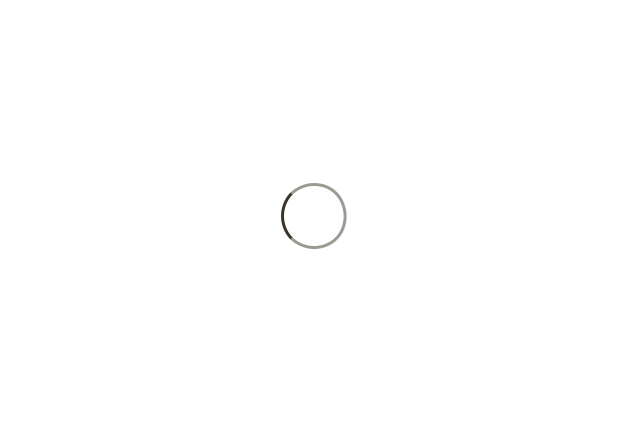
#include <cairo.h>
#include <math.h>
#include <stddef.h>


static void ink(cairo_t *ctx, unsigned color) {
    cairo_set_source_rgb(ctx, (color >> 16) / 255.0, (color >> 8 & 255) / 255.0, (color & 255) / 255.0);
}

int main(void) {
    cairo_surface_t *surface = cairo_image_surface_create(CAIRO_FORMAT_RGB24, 627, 432);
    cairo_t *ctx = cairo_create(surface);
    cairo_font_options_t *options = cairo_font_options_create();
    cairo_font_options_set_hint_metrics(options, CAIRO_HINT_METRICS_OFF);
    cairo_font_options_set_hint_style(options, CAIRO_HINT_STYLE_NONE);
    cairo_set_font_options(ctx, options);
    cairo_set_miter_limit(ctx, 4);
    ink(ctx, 0xFFFFFF);
    cairo_paint(ctx);
    cairo_new_path(ctx);
    cairo_move_to(ctx, 291.5, 193.5);
    cairo_curve_to(ctx, 297.5, 188, 305.5, 184.5, 314, 184.5);
    cairo_curve_to(ctx, 351.5, 184.5, 357, 239.5, 320, 247);
    cairo_curve_to(ctx, 310, 249, 299, 245.5, 291.5, 238.5);
    ink(ctx, 0x9D9A94);
    cairo_set_line_width(ctx, 3);
    cairo_stroke(ctx);
    cairo_new_path(ctx);
    cairo_move_to(ctx, 291.5, 238.5);
    cairo_curve_to(ctx, 279.5, 226, 279.5, 206, 291.5, 193.5);
    ink(ctx, 0x3B3428);
    cairo_stroke(ctx);
    cairo_surface_write_to_png(surface, "image.png");
    cairo_font_options_destroy(options);
    cairo_destroy(ctx);
    cairo_surface_destroy(surface);
    return 0;
}
